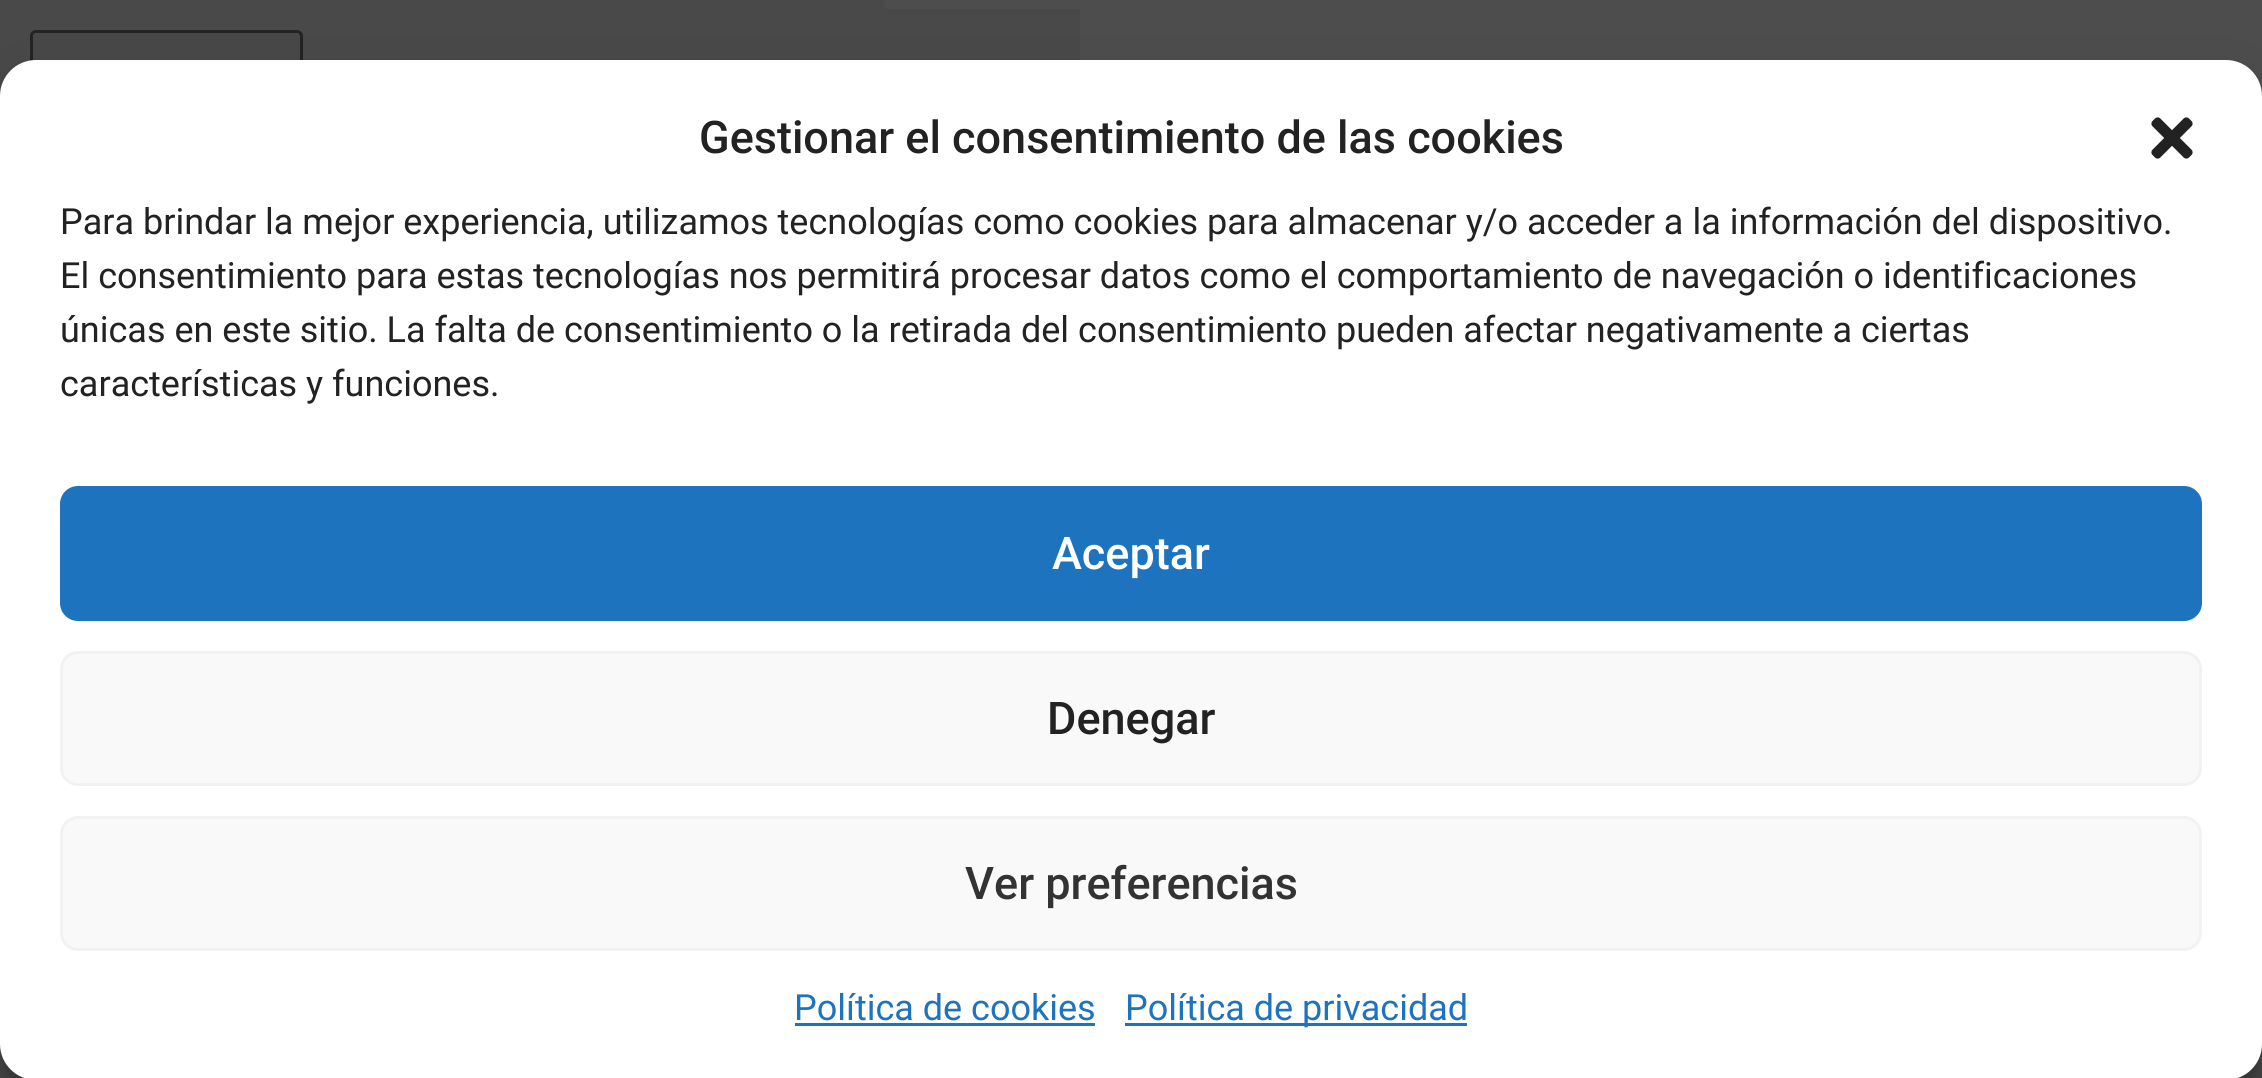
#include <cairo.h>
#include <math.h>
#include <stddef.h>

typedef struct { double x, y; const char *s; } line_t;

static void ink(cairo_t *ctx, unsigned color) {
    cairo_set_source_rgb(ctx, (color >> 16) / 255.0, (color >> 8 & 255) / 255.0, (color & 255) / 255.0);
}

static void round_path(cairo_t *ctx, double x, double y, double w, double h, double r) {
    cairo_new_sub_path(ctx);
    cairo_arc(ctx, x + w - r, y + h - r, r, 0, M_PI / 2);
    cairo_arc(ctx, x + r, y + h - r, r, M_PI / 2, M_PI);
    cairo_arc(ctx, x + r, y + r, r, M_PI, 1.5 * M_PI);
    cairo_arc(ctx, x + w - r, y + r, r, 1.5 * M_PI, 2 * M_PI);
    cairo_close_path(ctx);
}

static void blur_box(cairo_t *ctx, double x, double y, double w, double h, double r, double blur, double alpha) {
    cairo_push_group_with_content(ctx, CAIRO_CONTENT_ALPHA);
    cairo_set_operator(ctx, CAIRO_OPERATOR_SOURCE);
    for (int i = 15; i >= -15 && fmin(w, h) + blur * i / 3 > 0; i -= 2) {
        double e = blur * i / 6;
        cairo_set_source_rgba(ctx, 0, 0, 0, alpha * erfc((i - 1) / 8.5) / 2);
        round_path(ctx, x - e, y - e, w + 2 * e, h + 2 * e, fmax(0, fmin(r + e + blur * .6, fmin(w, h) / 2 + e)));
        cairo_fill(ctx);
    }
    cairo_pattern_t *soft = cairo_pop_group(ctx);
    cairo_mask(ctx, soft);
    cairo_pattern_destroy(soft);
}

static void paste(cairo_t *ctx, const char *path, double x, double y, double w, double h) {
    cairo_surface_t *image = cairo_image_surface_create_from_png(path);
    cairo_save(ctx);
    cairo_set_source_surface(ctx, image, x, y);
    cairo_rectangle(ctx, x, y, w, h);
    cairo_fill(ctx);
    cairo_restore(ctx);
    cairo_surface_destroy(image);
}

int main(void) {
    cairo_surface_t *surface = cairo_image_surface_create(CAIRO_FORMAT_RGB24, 2262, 1078);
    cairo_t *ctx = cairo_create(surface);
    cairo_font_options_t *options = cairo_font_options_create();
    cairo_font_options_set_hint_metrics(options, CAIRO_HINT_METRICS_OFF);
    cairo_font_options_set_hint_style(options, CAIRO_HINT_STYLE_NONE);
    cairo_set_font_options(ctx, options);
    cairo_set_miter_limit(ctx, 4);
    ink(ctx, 0x4D4D4D);
    cairo_paint(ctx);
    ink(ctx, 0x494949);
    cairo_rectangle(ctx, 0, 0, 885, 96);
    cairo_fill(ctx);
    ink(ctx, 0x484848);
    round_path(ctx, 31.5, 31.5, 270, 81, 4.5);
    cairo_fill_preserve(ctx);
    ink(ctx, 0x232323);
    cairo_set_line_width(ctx, 3);
    cairo_stroke(ctx);
    ink(ctx, 0x494949);
    cairo_rectangle(ctx, 885, 9, 195, 51);
    cairo_fill(ctx);
    ink(ctx, 0x000000);
    blur_box(ctx, 0, 78, 2262, 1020, 36, 9, 0.23);
    blur_box(ctx, 0, 90, 2262, 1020, 36, 30, 0.19);
    ink(ctx, 0xFFFFFF);
    round_path(ctx, 0, 60, 2262, 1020, 36);
    cairo_fill(ctx);
    cairo_select_font_face(ctx, "Roboto Medium", CAIRO_FONT_SLANT_NORMAL, CAIRO_FONT_WEIGHT_NORMAL);
    cairo_set_font_size(ctx, 45);
    ink(ctx, 0x222222);
    cairo_move_to(ctx, 699, 153);
    cairo_show_text(ctx, "Gestionar el consentimiento de las cookies");
    paste(ctx, "media/1.png", 2151, 117, 42, 42);
    cairo_select_font_face(ctx, "Roboto", CAIRO_FONT_SLANT_NORMAL, CAIRO_FONT_WEIGHT_NORMAL);
    cairo_set_font_size(ctx, 36);
    {
        static const line_t items[] = {
            {60, 234, "Para brindar la mejor experiencia, utilizamos tecnologías como cookies para almacenar y/o acceder a la información del dispositivo."},
            {60, 288, "El consentimiento para estas tecnologías nos permitirá procesar datos como el comportamiento de navegación o identificaciones"},
            {60, 342, "únicas en este sitio. La falta de consentimiento o la retirada del consentimiento pueden afectar negativamente a ciertas"},
            {60, 396, "características y funciones."},
        };
        for (size_t i = 0; i < sizeof items / sizeof *items; i++) {
            cairo_move_to(ctx, items[i].x, items[i].y);
            cairo_show_text(ctx, items[i].s);
        }
    }
    ink(ctx, 0x1E73BE);
    round_path(ctx, 61.5, 487.5, 2139, 132, 16.5);
    cairo_fill_preserve(ctx);
    cairo_stroke(ctx);
    cairo_select_font_face(ctx, "Roboto Medium", CAIRO_FONT_SLANT_NORMAL, CAIRO_FONT_WEIGHT_NORMAL);
    cairo_set_font_size(ctx, 45);
    ink(ctx, 0xFFFFFF);
    cairo_move_to(ctx, 1052, 569);
    cairo_show_text(ctx, "Aceptar");
    ink(ctx, 0xF9F9F9);
    round_path(ctx, 61.5, 652.5, 2139, 132, 16.5);
    cairo_fill_preserve(ctx);
    ink(ctx, 0xF2F2F2);
    cairo_stroke(ctx);
    ink(ctx, 0x222222);
    cairo_move_to(ctx, 1047, 734);
    cairo_show_text(ctx, "Denegar");
    ink(ctx, 0xF9F9F9);
    round_path(ctx, 61.5, 817.5, 2139, 132, 16.5);
    cairo_fill_preserve(ctx);
    ink(ctx, 0xF2F2F2);
    cairo_stroke(ctx);
    ink(ctx, 0x333333);
    cairo_move_to(ctx, 965, 899);
    cairo_show_text(ctx, "Ver preferencias");
    cairo_select_font_face(ctx, "Roboto", CAIRO_FONT_SLANT_NORMAL, CAIRO_FONT_WEIGHT_NORMAL);
    cairo_set_font_size(ctx, 36);
    ink(ctx, 0x1E73BE);
    cairo_move_to(ctx, 794, 1020);
    cairo_show_text(ctx, "Política de cookies");
    cairo_rectangle(ctx, 795, 1023, 300, 3);
    cairo_fill(ctx);
    cairo_rectangle(ctx, 1125, 1023, 342, 3);
    cairo_fill(ctx);
    cairo_move_to(ctx, 1125, 1020);
    cairo_show_text(ctx, "Política de privacidad");
    cairo_surface_write_to_png(surface, "image.png");
    cairo_font_options_destroy(options);
    cairo_destroy(ctx);
    cairo_surface_destroy(surface);
    return 0;
}
